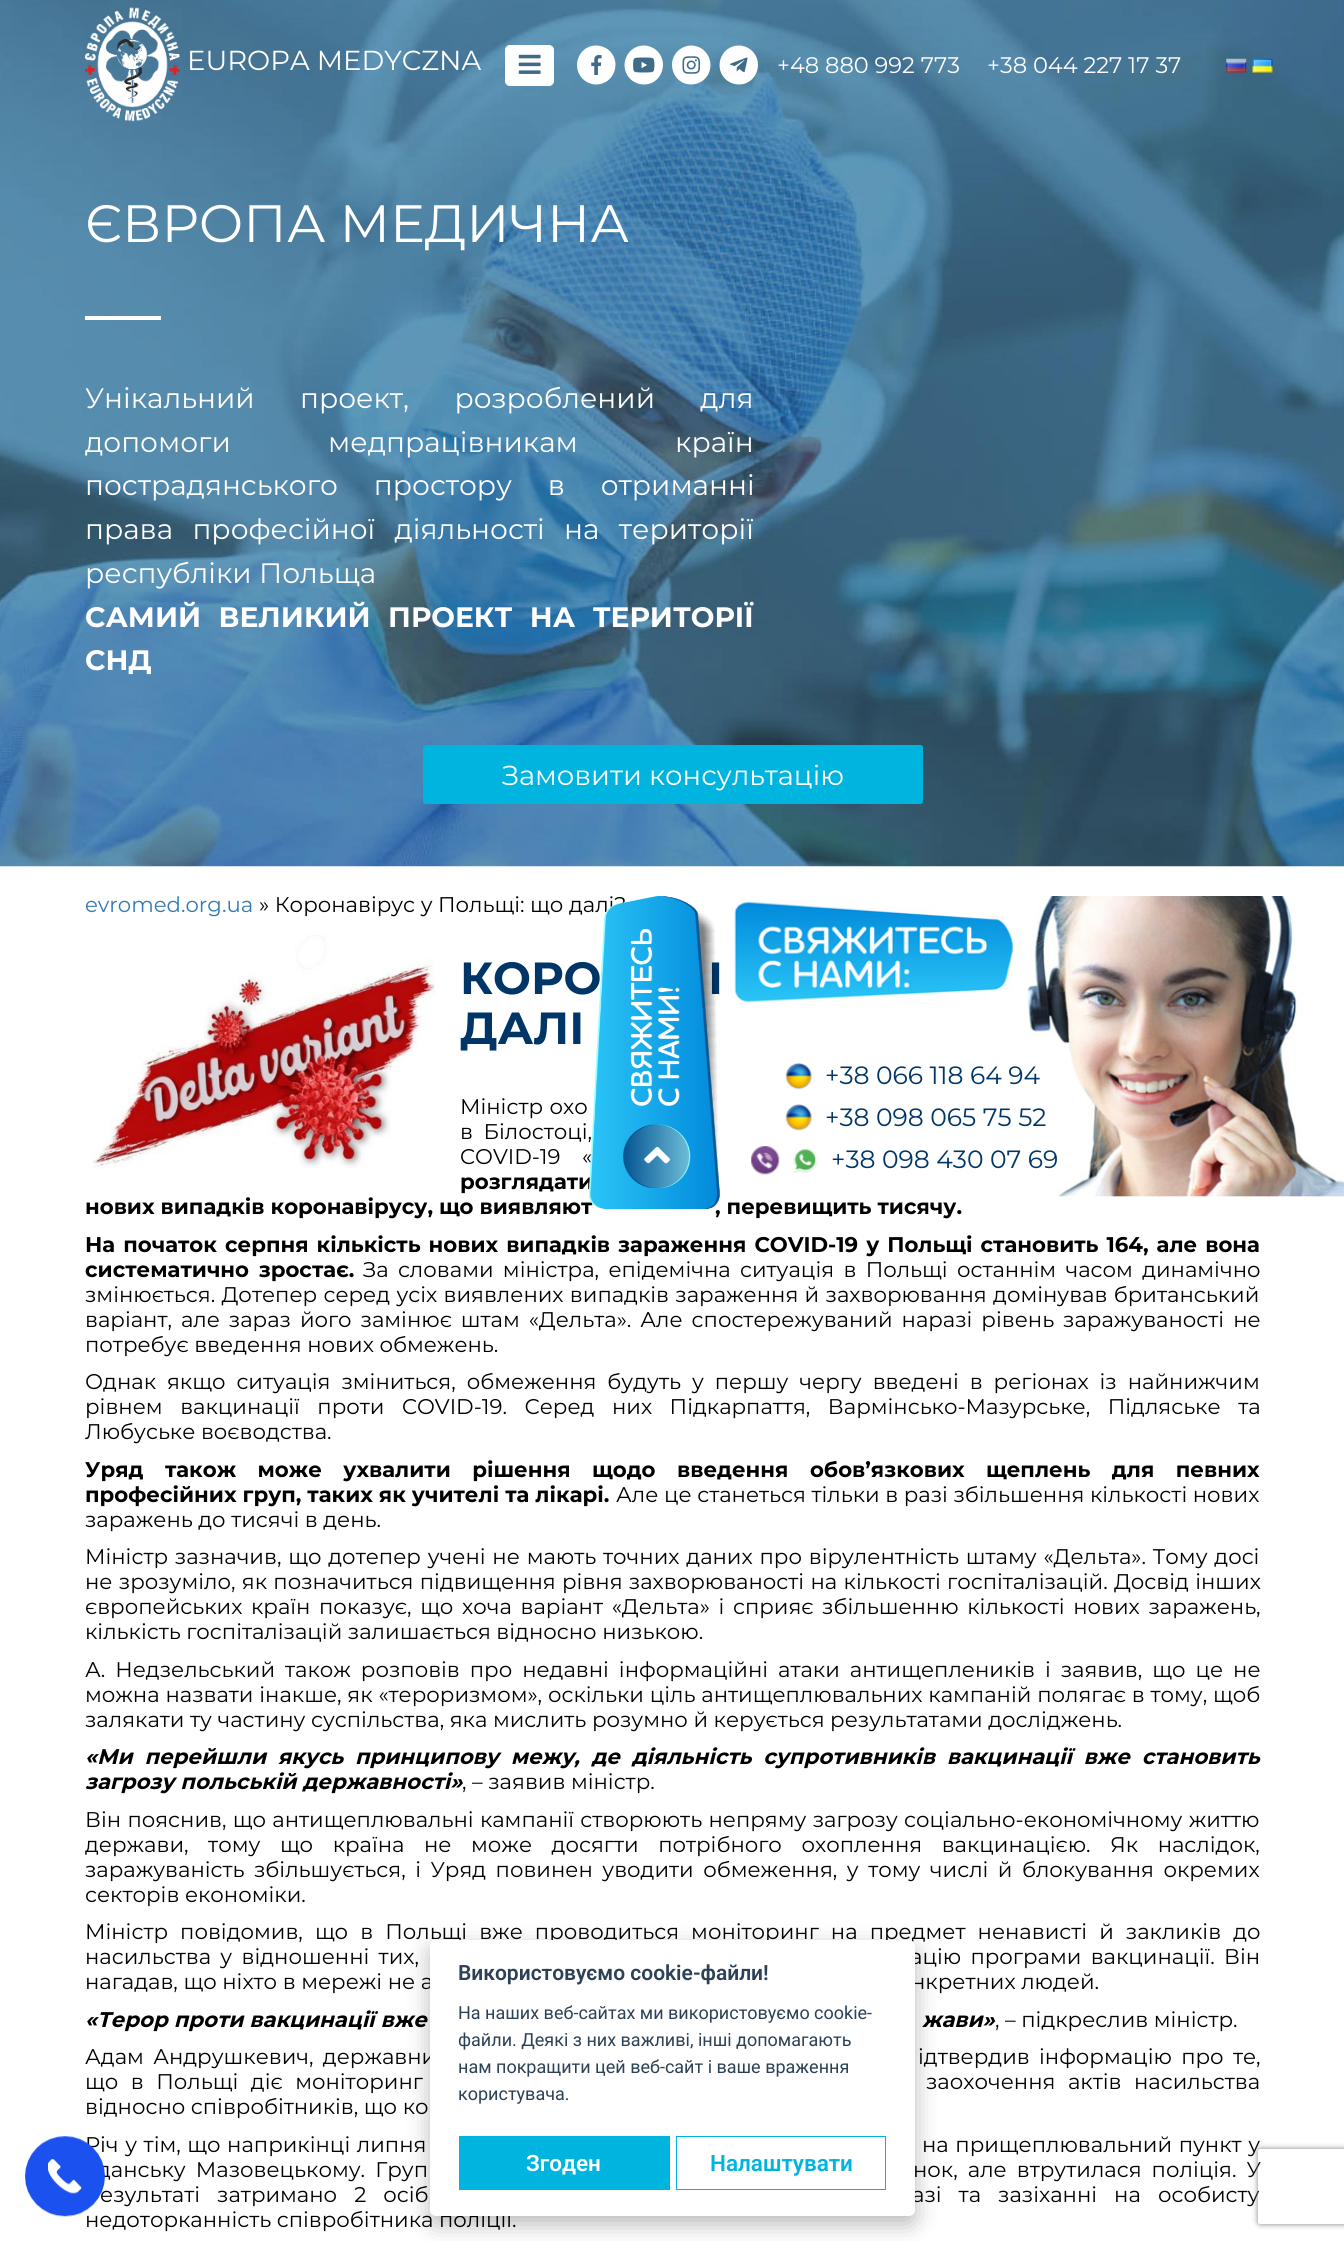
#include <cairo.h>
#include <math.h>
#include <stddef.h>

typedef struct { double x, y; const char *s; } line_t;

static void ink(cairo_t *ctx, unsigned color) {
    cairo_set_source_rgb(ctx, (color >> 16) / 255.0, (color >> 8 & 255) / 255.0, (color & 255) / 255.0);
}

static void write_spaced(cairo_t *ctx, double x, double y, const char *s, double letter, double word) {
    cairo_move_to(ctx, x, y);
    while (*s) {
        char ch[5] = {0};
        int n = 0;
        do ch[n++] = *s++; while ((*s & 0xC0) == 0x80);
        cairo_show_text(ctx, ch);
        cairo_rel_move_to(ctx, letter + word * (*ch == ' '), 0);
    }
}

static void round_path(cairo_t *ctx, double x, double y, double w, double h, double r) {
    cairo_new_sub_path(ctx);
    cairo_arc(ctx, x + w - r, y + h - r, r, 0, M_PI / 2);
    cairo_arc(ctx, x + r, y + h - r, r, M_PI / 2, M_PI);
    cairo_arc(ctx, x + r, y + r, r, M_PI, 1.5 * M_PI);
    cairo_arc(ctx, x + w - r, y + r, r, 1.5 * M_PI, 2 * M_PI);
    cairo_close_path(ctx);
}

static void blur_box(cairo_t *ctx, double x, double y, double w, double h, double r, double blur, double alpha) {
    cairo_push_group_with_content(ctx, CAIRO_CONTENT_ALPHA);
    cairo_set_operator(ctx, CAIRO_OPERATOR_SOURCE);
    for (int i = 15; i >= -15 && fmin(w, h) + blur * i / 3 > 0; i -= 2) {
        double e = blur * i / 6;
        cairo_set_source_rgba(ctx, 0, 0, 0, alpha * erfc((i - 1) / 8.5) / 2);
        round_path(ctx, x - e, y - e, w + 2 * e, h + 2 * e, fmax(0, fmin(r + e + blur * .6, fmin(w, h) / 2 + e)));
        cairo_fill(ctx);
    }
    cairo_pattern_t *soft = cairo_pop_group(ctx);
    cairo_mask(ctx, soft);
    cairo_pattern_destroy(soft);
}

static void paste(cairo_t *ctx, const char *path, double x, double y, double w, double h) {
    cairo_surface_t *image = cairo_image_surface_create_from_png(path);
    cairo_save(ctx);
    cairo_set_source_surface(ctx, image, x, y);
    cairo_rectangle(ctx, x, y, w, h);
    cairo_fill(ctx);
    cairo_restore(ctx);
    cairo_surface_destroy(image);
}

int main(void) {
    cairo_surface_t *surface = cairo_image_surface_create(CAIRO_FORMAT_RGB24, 1344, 2241);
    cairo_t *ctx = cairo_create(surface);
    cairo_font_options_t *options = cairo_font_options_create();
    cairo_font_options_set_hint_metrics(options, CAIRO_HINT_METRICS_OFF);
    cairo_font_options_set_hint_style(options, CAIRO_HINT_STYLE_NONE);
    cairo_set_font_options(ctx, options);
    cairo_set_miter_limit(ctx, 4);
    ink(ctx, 0xFFFFFF);
    cairo_paint(ctx);
    paste(ctx, "media/1.png", 0, 0, 1344, 867);
    paste(ctx, "media/2.png", 85, 7, 95, 115);
    cairo_select_font_face(ctx, "Montserrat", CAIRO_FONT_SLANT_NORMAL, CAIRO_FONT_WEIGHT_NORMAL);
    cairo_set_font_size(ctx, 27.5);
    ink(ctx, 0xFFFFFF);
    cairo_move_to(ctx, 187, 70);
    cairo_show_text(ctx, "EUROPA MEDYCZNA");
    round_path(ctx, 505.5, 45.5, 48, 40, 4.5);
    cairo_fill_preserve(ctx);
    cairo_set_line_width(ctx, 1);
    cairo_stroke(ctx);
    paste(ctx, "media/3.png", 518, 54, 23, 20);
    cairo_new_path(ctx);
    cairo_move_to(ctx, 596, 45.5);
    cairo_curve_to(ctx, 578, 45.5, 570, 69, 584.5, 80.5);
    cairo_curve_to(ctx, 588, 83, 592, 84.5, 596, 84.5);
    cairo_curve_to(ctx, 614.5, 84.5, 622.5, 61, 608, 49.5);
    cairo_curve_to(ctx, 604.5, 47, 600.5, 45.5, 596, 45.5);
    cairo_close_path(ctx);
    cairo_fill(ctx);
    paste(ctx, "media/4.png", 591, 55, 11, 20);
    cairo_new_path(ctx);
    cairo_move_to(ctx, 644, 45.5);
    cairo_curve_to(ctx, 625.5, 45.5, 617.5, 69, 632, 80.5);
    cairo_curve_to(ctx, 635.5, 83, 639.5, 84.5, 644, 84.5);
    cairo_curve_to(ctx, 662, 84.5, 670, 61, 655.5, 49.5);
    cairo_curve_to(ctx, 652, 47, 648, 45.5, 644, 45.5);
    cairo_close_path(ctx);
    cairo_fill(ctx);
    paste(ctx, "media/5.png", 633, 57, 22, 16);
    cairo_new_path(ctx);
    cairo_move_to(ctx, 691, 45.5);
    cairo_curve_to(ctx, 687, 45.5, 683, 47, 679.5, 49.5);
    cairo_curve_to(ctx, 665, 61, 673, 84.5, 691, 84.5);
    cairo_curve_to(ctx, 695.5, 84.5, 699.5, 83, 703, 80.5);
    cairo_curve_to(ctx, 717.5, 69, 709.5, 45.5, 691, 45.5);
    cairo_close_path(ctx);
    cairo_fill(ctx);
    paste(ctx, "media/6.png", 682, 56, 18, 18);
    cairo_new_path(ctx);
    cairo_move_to(ctx, 739, 45.5);
    cairo_curve_to(ctx, 720.5, 45.5, 712.5, 69, 727, 80.5);
    cairo_curve_to(ctx, 730.5, 83, 734.5, 84.5, 739, 84.5);
    cairo_curve_to(ctx, 757, 84.5, 765, 61, 750.5, 49.5);
    cairo_curve_to(ctx, 747, 47, 743, 45.5, 739, 45.5);
    cairo_close_path(ctx);
    cairo_fill(ctx);
    paste(ctx, "media/7.png", 730, 57, 18, 16);
    cairo_set_font_size(ctx, 22.5);
    cairo_move_to(ctx, 777, 73);
    cairo_show_text(ctx, "+48 880 992 773");
    cairo_move_to(ctx, 987, 73);
    cairo_show_text(ctx, "+38 044 227 17 37");
    paste(ctx, "media/8.png", 1226, 58, 21, 15);
    paste(ctx, "media/9.png", 1252, 58, 21, 15);
    cairo_set_font_size(ctx, 52.5);
    cairo_move_to(ctx, 85, 242);
    cairo_show_text(ctx, "ЄВРОПА МЕДИЧНА");
    cairo_rectangle(ctx, 85, 316, 76, 4);
    cairo_fill(ctx);
    cairo_set_font_size(ctx, 28.1);
    write_spaced(ctx, 85, 408, "Унікальний проект, розроблений для", 0, 38);
    write_spaced(ctx, 85, 452, "допомоги медпрацівникам країн", 0, 90);
    write_spaced(ctx, 85, 495, "пострадянського простору в отриманні", 0, 28.5);
    write_spaced(ctx, 85, 539, "права професійної діяльності на території", 0, 12);
    cairo_move_to(ctx, 85, 583);
    cairo_show_text(ctx, "республіки Польща");
    cairo_select_font_face(ctx, "Montserrat", CAIRO_FONT_SLANT_NORMAL, CAIRO_FONT_WEIGHT_BOLD);
    write_spaced(ctx, 85, 627, "САМИЙ ВЕЛИКИЙ ПРОЕКТ НА ТЕРИТОРІЇ", 0, 9.5);
    cairo_move_to(ctx, 85, 670);
    cairo_show_text(ctx, "СНД");
    ink(ctx, 0x00B4E0);
    round_path(ctx, 423, 745, 500, 59, 2.5);
    cairo_fill(ctx);
    cairo_select_font_face(ctx, "Montserrat", CAIRO_FONT_SLANT_NORMAL, CAIRO_FONT_WEIGHT_NORMAL);
    cairo_set_font_size(ctx, 27.5);
    ink(ctx, 0xFFFFFF);
    cairo_move_to(ctx, 502, 785);
    cairo_show_text(ctx, "Замовити консультацію");
    cairo_set_font_size(ctx, 21.25);
    ink(ctx, 0x337AB7);
    cairo_move_to(ctx, 85, 912);
    cairo_show_text(ctx, "evromed.org.ua");
    ink(ctx, 0x000000);
    cairo_move_to(ctx, 259, 912);
    cairo_show_text(ctx, "» Коронавірус у Польщі: що далі?");
    paste(ctx, "media/10.png", 92, 935, 343, 234);
    cairo_select_font_face(ctx, "Montserrat", CAIRO_FONT_SLANT_NORMAL, CAIRO_FONT_WEIGHT_BOLD);
    cairo_set_font_size(ctx, 45);
    ink(ctx, 0x003567);
    {
        static const line_t items[] = {
            {460, 994, "КОРО"},
            {708, 994, "І"},
            {460, 1044, "ДАЛІ"},
        };
        for (size_t i = 0; i < sizeof items / sizeof *items; i++) {
            cairo_move_to(ctx, items[i].x, items[i].y);
            cairo_show_text(ctx, items[i].s);
        }
    }
    cairo_select_font_face(ctx, "Montserrat", CAIRO_FONT_SLANT_NORMAL, CAIRO_FONT_WEIGHT_NORMAL);
    cairo_set_font_size(ctx, 21.25);
    ink(ctx, 0x000000);
    write_spaced(ctx, 460, 1114, "Міністр охо", 0, 1);
    write_spaced(ctx, 460, 1139, "в Білостоці,", 0, 5);
    write_spaced(ctx, 460, 1164, "COVID-19 «", 0, 16);
    cairo_select_font_face(ctx, "Montserrat", CAIRO_FONT_SLANT_NORMAL, CAIRO_FONT_WEIGHT_BOLD);
    write_spaced(ctx, 460, 1189, "розглядати", 0, 6);
    cairo_move_to(ctx, 85, 1214);
    cairo_show_text(ctx, "нових випадків коронавірусу, що виявляют");
    cairo_move_to(ctx, 715, 1214);
    cairo_show_text(ctx, ", перевищить тисячу.");
    write_spaced(ctx, 85, 1252, "На початок серпня кількість нових випадків зараження COVID-19 у Польщі становить 164, але вона", 0, 2);
    write_spaced(ctx, 85, 1277, "систематично зростає.", 0, 3.75);
    cairo_select_font_face(ctx, "Montserrat", CAIRO_FONT_SLANT_NORMAL, CAIRO_FONT_WEIGHT_NORMAL);
    write_spaced(ctx, 363, 1277, "За словами міністра, епідемічна ситуація в Польщі останнім часом динамічно", 0, 3.75);
    write_spaced(ctx, 85, 1302, "змінюється. Дотепер серед усіх виявлених випадків зараження й захворювання домінував британський", 0, 0.75);
    write_spaced(ctx, 85, 1327, "варіант, але зараз його замінює штам «Дельта». Але спостережуваний наразі рівень заражуваності не", 0, 3.4);
    cairo_move_to(ctx, 85, 1352);
    cairo_show_text(ctx, "потребує введення нових обмежень.");
    write_spaced(ctx, 85, 1389, "Однак якщо ситуація зміниться, обмеження будуть у першу чергу введені в регіонах із найнижчим", 0, 5.4);
    write_spaced(ctx, 85, 1414, "рівнем вакцинації проти COVID-19. Серед них Підкарпаття, Вармінсько-Мазурське, Підляське та", 0, 12);
    cairo_move_to(ctx, 85, 1439);
    cairo_show_text(ctx, "Любуське воєводства.");
    cairo_select_font_face(ctx, "Montserrat", CAIRO_FONT_SLANT_NORMAL, CAIRO_FONT_WEIGHT_BOLD);
    write_spaced(ctx, 85, 1477, "Уряд також може ухвалити рішення щодо введення обов’язкових щеплень для певних", 0, 15.5);
    cairo_move_to(ctx, 85, 1502);
    cairo_show_text(ctx, "професійних груп, таких як учителі та лікарі.");
    cairo_select_font_face(ctx, "Montserrat", CAIRO_FONT_SLANT_NORMAL, CAIRO_FONT_WEIGHT_NORMAL);
    cairo_move_to(ctx, 616, 1502);
    cairo_show_text(ctx, "Але це станеться тільки в разі збільшення кількості нових");
    cairo_move_to(ctx, 85, 1527);
    cairo_show_text(ctx, "заражень до тисячі в день.");
    write_spaced(ctx, 85, 1564, "Міністр зазначив, що дотепер учені не мають точних даних про вірулентність штаму «Дельта». Тому досі", 0, 1.25);
    write_spaced(ctx, 85, 1589, "не зрозуміло, як позначиться підвищення рівня захворюваності на кількості госпіталізацій. Досвід інших", 0, 0.75);
    write_spaced(ctx, 85, 1614, "європейських країн показує, що хоча варіант «Дельта» і сприяє збільшенню кількості нових заражень,", 0, 3.1);
    cairo_move_to(ctx, 85, 1639);
    cairo_show_text(ctx, "кількість госпіталізацій залишається відносно низькою.");
    write_spaced(ctx, 85, 1677, "А. Недзельський також розповів про недавні інформаційні атаки антищеплеників і заявив, що це не", 0, 4.4);
    write_spaced(ctx, 85, 1702, "можна назвати інакше, як «тероризмом», оскільки ціль антищеплювальних кампаній полягає в тому, щоб", 0, 0.25);
    cairo_move_to(ctx, 85, 1727);
    cairo_show_text(ctx, "залякати ту частину суспільства, яка мислить розумно й керується результатами досліджень.");
    cairo_select_font_face(ctx, "Montserrat", CAIRO_FONT_SLANT_ITALIC, CAIRO_FONT_WEIGHT_BOLD);
    write_spaced(ctx, 85, 1764, "«Ми перейшли якусь принципову межу, де діяльність супротивників вакцинації вже становить", 0, 5.75);
    cairo_move_to(ctx, 85, 1789);
    cairo_show_text(ctx, "загрозу польській державності»");
    cairo_select_font_face(ctx, "Montserrat", CAIRO_FONT_SLANT_NORMAL, CAIRO_FONT_WEIGHT_NORMAL);
    cairo_move_to(ctx, 462, 1789);
    cairo_show_text(ctx, ", – заявив міністр.");
    write_spaced(ctx, 85, 1827, "Він пояснив, що антищеплювальні кампанії створюють непряму загрозу соціально-економічному життю", 0, 0.75);
    write_spaced(ctx, 85, 1852, "держави, тому що країна не може досягти потрібного охоплення вакцинацією. Як наслідок,", 0, 14);
    write_spaced(ctx, 85, 1877, "заражуваність збільшується, і Уряд повинен уводити обмеження, у тому числі й блокування окремих", 0, 3.9);
    cairo_move_to(ctx, 85, 1902);
    cairo_show_text(ctx, "секторів економіки.");
    write_spaced(ctx, 85, 1939, "Міністр повідомив, що в Польщі вже проводиться моніторинг на предмет ненависті й закликів до", 0, 6.5);
    write_spaced(ctx, 85, 1964, "насильства у відношенні тих,", 0, 3.75);
    write_spaced(ctx, 910, 1964, "ацію програми вакцинації. Він", 0, 3.75);
    cairo_move_to(ctx, 85, 1989);
    cairo_show_text(ctx, "нагадав, що ніхто в мережі не а");
    cairo_move_to(ctx, 911, 1989);
    cairo_show_text(ctx, "нкретних людей.");
    cairo_select_font_face(ctx, "Montserrat", CAIRO_FONT_SLANT_ITALIC, CAIRO_FONT_WEIGHT_BOLD);
    cairo_move_to(ctx, 85, 2027);
    cairo_show_text(ctx, "«Терор проти вакцинації вже");
    cairo_move_to(ctx, 922, 2027);
    cairo_show_text(ctx, "жави»");
    cairo_select_font_face(ctx, "Montserrat", CAIRO_FONT_SLANT_NORMAL, CAIRO_FONT_WEIGHT_NORMAL);
    cairo_move_to(ctx, 995, 2027);
    cairo_show_text(ctx, ", – підкреслив міністр.");
    write_spaced(ctx, 85, 2064, "Адам Андрушкевич, державни", 0, 3.75);
    write_spaced(ctx, 918, 2064, "ідтвердив інформацію про те,", 0, 3.75);
    write_spaced(ctx, 85, 2089, "що в Польщі діє моніторинг", 0, 7);
    write_spaced(ctx, 926, 2089, "заохочення актів насильства", 0, 7);
    cairo_move_to(ctx, 85, 2114);
    cairo_show_text(ctx, "відносно співробітників, що ко");
    write_spaced(ctx, 85, 2152, "Річ у тім, що наприкінці липня", 0, 1);
    write_spaced(ctx, 922, 2152, "на прищеплювальний пункт у", 0, 1);
    write_spaced(ctx, 97, 2177, "данську Мазовецькому. Груп", 0, 4.5);
    write_spaced(ctx, 913, 2177, "нок, але втрутилася поліція. У", 0, 4.5);
    write_spaced(ctx, 100, 2202, "езультаті затримано 2 осіб", 0, 11.5);
    write_spaced(ctx, 912, 2202, "азі та зазіханні на особисту", 0, 11.5);
    cairo_move_to(ctx, 85, 2227);
    cairo_show_text(ctx, "недоторканність співробітника поліції.");
    paste(ctx, "media/11.png", 589, 896, 132, 313);
    paste(ctx, "media/12.png", 730, 896, 614, 301);
    paste(ctx, "media/13.png", 785, 1063, 27, 27);
    cairo_set_font_size(ctx, 25);
    ink(ctx, 0x003567);
    cairo_move_to(ctx, 825, 1084);
    cairo_show_text(ctx, "+38 066 118 64 94");
    paste(ctx, "media/14.png", 785, 1104, 27, 27);
    cairo_move_to(ctx, 825, 1126);
    cairo_show_text(ctx, "+38 098 065 75 52");
    paste(ctx, "media/15.png", 751, 1146, 29, 29);
    paste(ctx, "media/16.png", 793, 1149, 25, 24);
    cairo_move_to(ctx, 831, 1168);
    cairo_show_text(ctx, "+38 098 430 07 69");
    paste(ctx, "media/17.png", 25, 2136, 80, 81);
    ink(ctx, 0x020203);
    blur_box(ctx, 430, 1948, 485, 276, 6, 11.5, 0.28);
    ink(ctx, 0xFFFFFF);
    round_path(ctx, 430, 1940, 485, 276, 6);
    cairo_fill(ctx);
    cairo_select_font_face(ctx, "Roboto SemiBold", CAIRO_FONT_SLANT_NORMAL, CAIRO_FONT_WEIGHT_NORMAL);
    cairo_set_font_size(ctx, 21);
    ink(ctx, 0x2D4156);
    cairo_move_to(ctx, 458, 1980);
    cairo_show_text(ctx, "Використовуємо cookie-файли!");
    cairo_select_font_face(ctx, "Roboto", CAIRO_FONT_SLANT_NORMAL, CAIRO_FONT_WEIGHT_NORMAL);
    cairo_set_font_size(ctx, 18);
    {
        static const line_t items[] = {
            {458, 2019, "На наших веб-сайтах ми використовуємо cookie-"},
            {458, 2046, "файли. Деякі з них важливі, інші допомагають"},
            {458, 2073, "нам покращити цей веб-сайт і ваше враження"},
            {458, 2100, "користувача."},
        };
        for (size_t i = 0; i < sizeof items / sizeof *items; i++) {
            cairo_move_to(ctx, items[i].x, items[i].y);
            cairo_show_text(ctx, items[i].s);
        }
    }
    ink(ctx, 0x00B4E0);
    cairo_rectangle(ctx, 459, 2136, 211, 54);
    cairo_fill(ctx);
    cairo_select_font_face(ctx, "Roboto SemiBold", CAIRO_FONT_SLANT_NORMAL, CAIRO_FONT_WEIGHT_NORMAL);
    cairo_set_font_size(ctx, 22.5);
    ink(ctx, 0xFFFFFF);
    cairo_move_to(ctx, 526, 2171);
    cairo_show_text(ctx, "Згоден");
    cairo_rectangle(ctx, 676.5, 2136.5, 209, 53);
    ink(ctx, 0x00B4E0);
    cairo_stroke(ctx);
    cairo_move_to(ctx, 710, 2171);
    cairo_show_text(ctx, "Налаштувати");
    cairo_save(ctx);
    cairo_set_fill_rule(ctx, CAIRO_FILL_RULE_EVEN_ODD);
    cairo_new_path(ctx);
    cairo_move_to(ctx, 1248, 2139);
    cairo_line_to(ctx, 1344, 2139);
    cairo_line_to(ctx, 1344, 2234);
    cairo_line_to(ctx, 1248, 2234);
    cairo_close_path(ctx);
    cairo_move_to(ctx, 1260.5, 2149);
    cairo_line_to(ctx, 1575.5, 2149);
    cairo_curve_to(ctx, 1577, 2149, 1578, 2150, 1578, 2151.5);
    cairo_line_to(ctx, 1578, 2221.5);
    cairo_curve_to(ctx, 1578, 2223, 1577, 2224, 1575.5, 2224);
    cairo_line_to(ctx, 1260.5, 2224);
    cairo_curve_to(ctx, 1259, 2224, 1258, 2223, 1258, 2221.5);
    cairo_line_to(ctx, 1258, 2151.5);
    cairo_curve_to(ctx, 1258, 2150, 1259, 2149, 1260.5, 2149);
    cairo_close_path(ctx);
    cairo_clip(ctx);
    ink(ctx, 0x808080);
    blur_box(ctx, 1258, 2149, 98, 75, 2.5, 3, 1);
    cairo_restore(ctx);
    cairo_surface_write_to_png(surface, "image.png");
    cairo_font_options_destroy(options);
    cairo_destroy(ctx);
    cairo_surface_destroy(surface);
    return 0;
}
